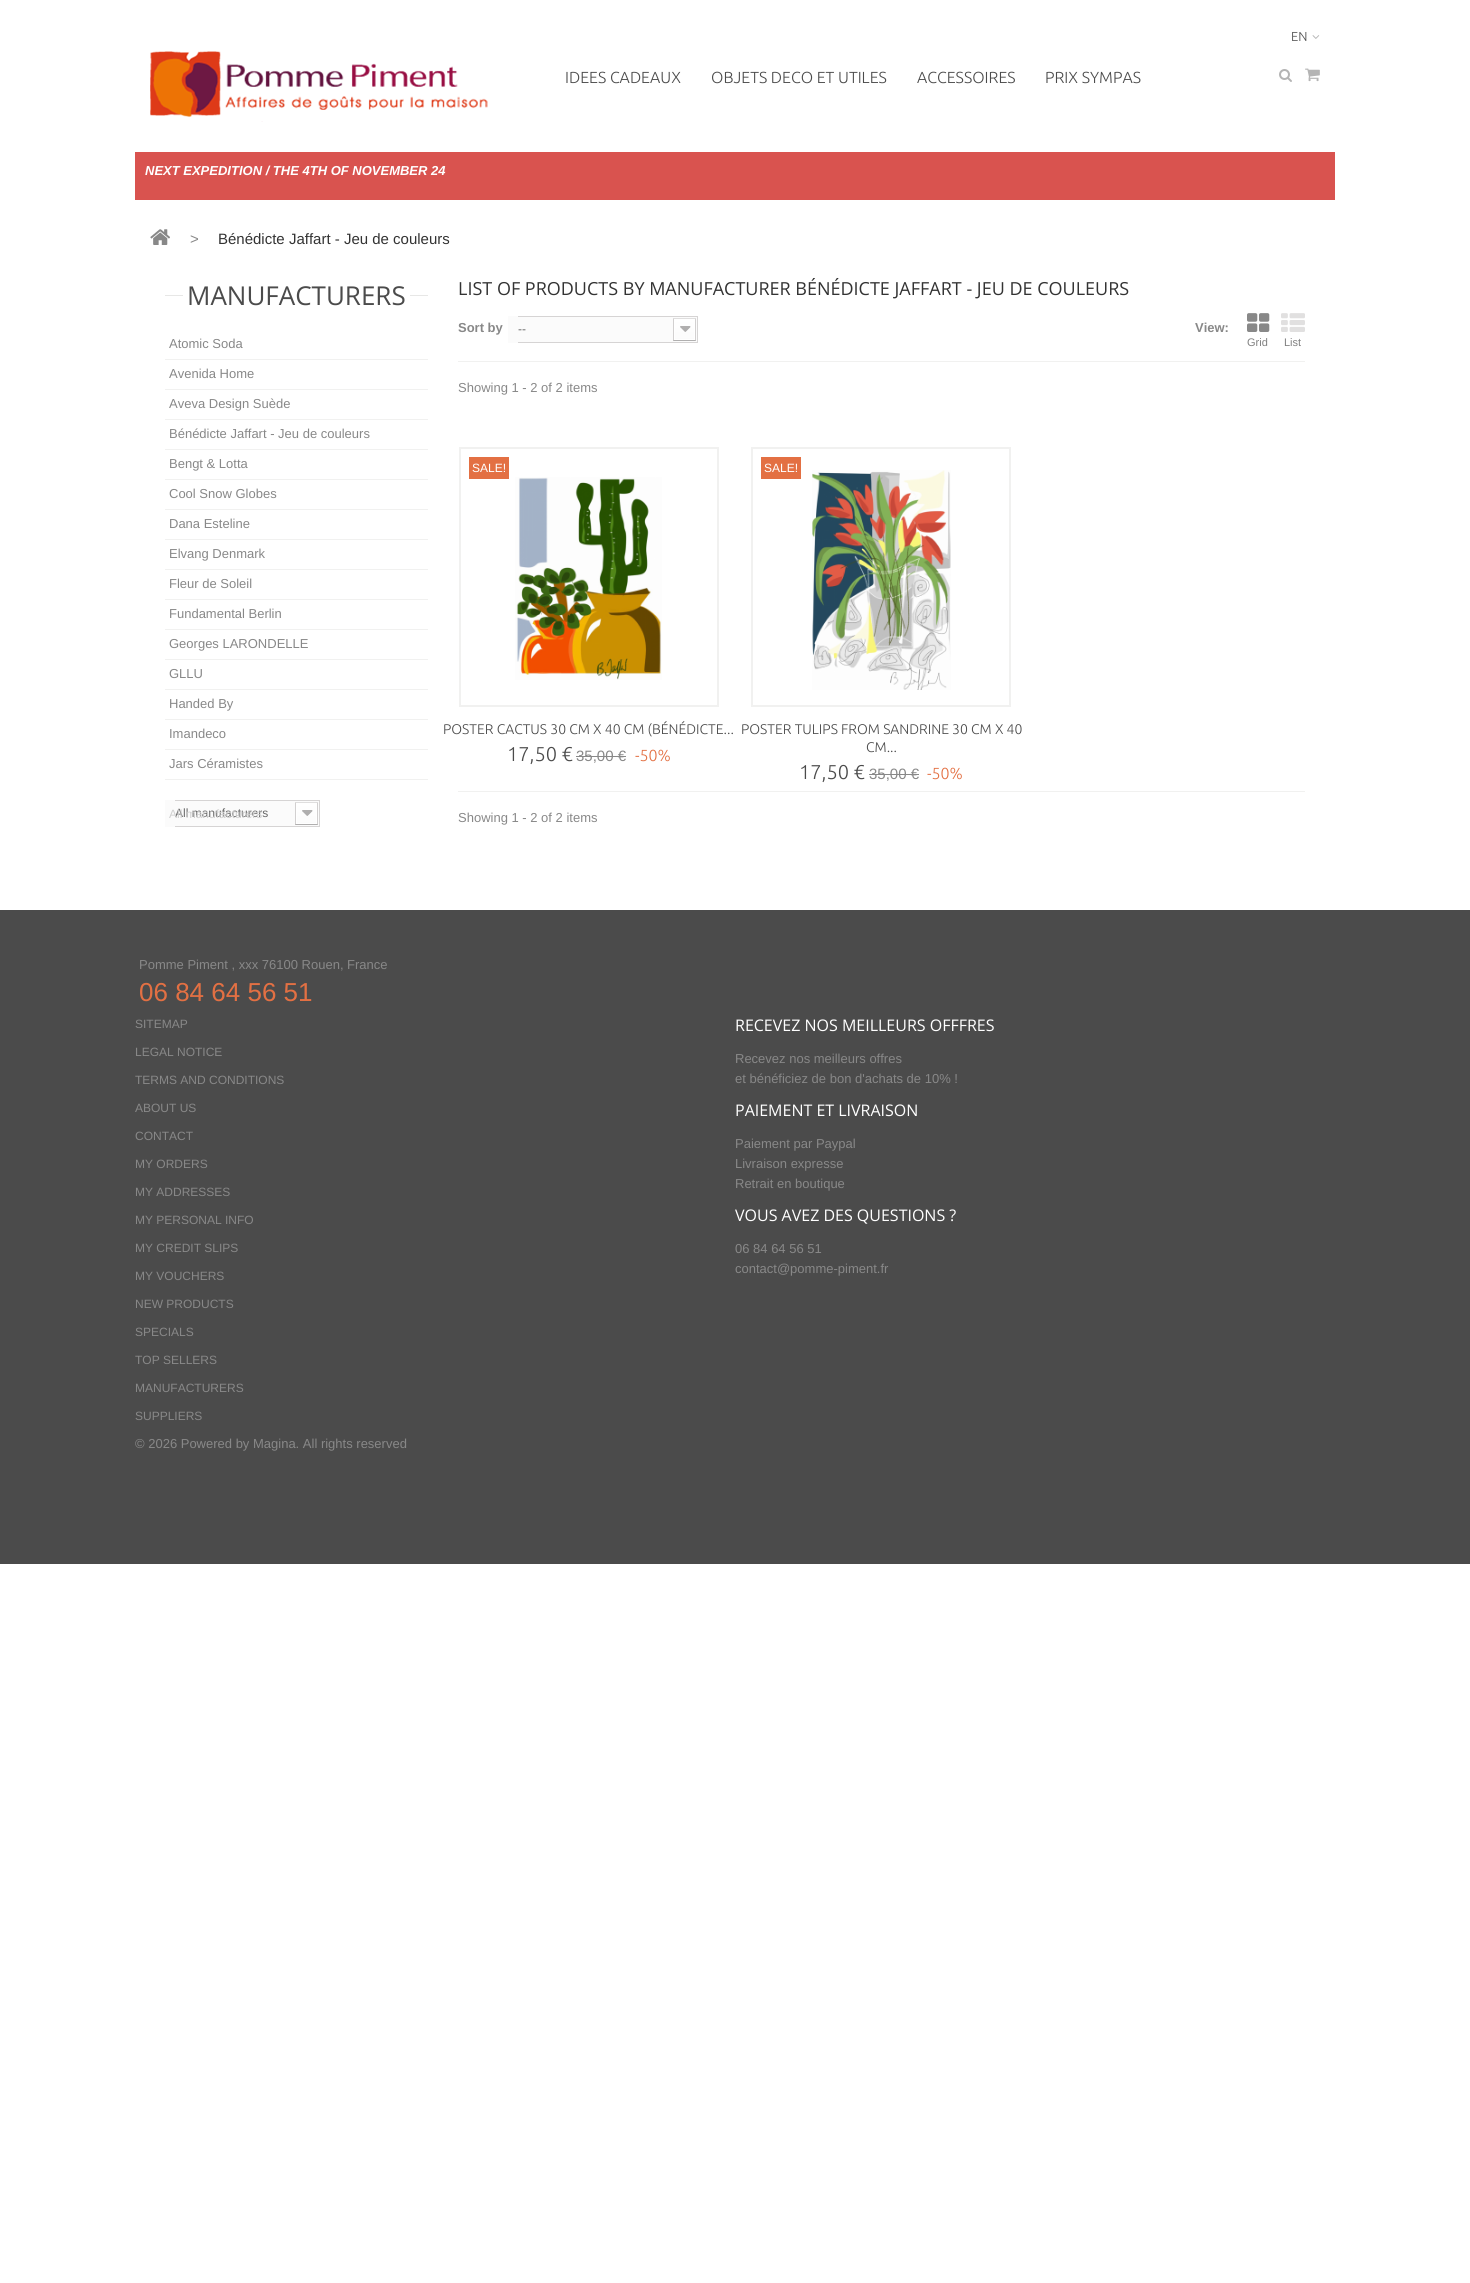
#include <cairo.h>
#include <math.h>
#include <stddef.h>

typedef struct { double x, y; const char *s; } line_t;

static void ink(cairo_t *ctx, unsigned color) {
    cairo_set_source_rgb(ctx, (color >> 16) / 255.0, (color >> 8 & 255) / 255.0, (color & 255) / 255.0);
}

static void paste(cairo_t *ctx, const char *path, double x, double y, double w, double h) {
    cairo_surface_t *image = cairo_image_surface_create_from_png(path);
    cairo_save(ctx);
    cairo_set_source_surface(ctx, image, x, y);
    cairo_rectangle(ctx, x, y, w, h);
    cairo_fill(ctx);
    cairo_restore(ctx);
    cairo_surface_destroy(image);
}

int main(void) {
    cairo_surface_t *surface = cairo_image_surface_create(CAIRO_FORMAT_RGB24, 1470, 2283);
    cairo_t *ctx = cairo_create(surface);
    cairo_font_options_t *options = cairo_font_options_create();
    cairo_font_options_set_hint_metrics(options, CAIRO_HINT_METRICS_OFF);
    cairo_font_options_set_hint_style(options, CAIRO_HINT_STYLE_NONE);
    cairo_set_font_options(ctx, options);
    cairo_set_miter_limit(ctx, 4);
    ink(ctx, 0xFFFFFF);
    cairo_paint(ctx);
    cairo_select_font_face(ctx, "Ubuntu Light", CAIRO_FONT_SLANT_NORMAL, CAIRO_FONT_WEIGHT_NORMAL);
    cairo_set_font_size(ctx, 13);
    ink(ctx, 0x4B4B4B);
    cairo_move_to(ctx, 1291, 41);
    cairo_show_text(ctx, "EN");
    paste(ctx, "media/1.png", 1312, 35, 8, 4);
    paste(ctx, "media/2.png", 150, 51, 338, 71);
    cairo_set_font_size(ctx, 16);
    {
        static const line_t items[] = {
            {565, 83, "IDEES CADEAUX"},
            {711, 83, "OBJETS DECO ET UTILES"},
            {917, 83, "ACCESSOIRES"},
            {1045, 83, "PRIX SYMPAS"},
        };
        for (size_t i = 0; i < sizeof items / sizeof *items; i++) {
            cairo_move_to(ctx, items[i].x, items[i].y);
            cairo_show_text(ctx, items[i].s);
        }
    }
    paste(ctx, "media/3.png", 1279, 69, 13, 13);
    paste(ctx, "media/4.png", 1305, 68, 15, 14);
    ink(ctx, 0xD9534F);
    cairo_rectangle(ctx, 135, 152, 1200, 48);
    cairo_fill(ctx);
    cairo_select_font_face(ctx, "Liberation Sans", CAIRO_FONT_SLANT_ITALIC, CAIRO_FONT_WEIGHT_BOLD);
    cairo_set_font_size(ctx, 13);
    ink(ctx, 0xFFFFFF);
    cairo_move_to(ctx, 145, 175);
    cairo_show_text(ctx, "NEXT EXPEDITION / THE 4TH OF NOVEMBER 24");
    paste(ctx, "media/5.png", 150, 229, 20, 16);
    cairo_select_font_face(ctx, "Liberation Sans", CAIRO_FONT_SLANT_NORMAL, CAIRO_FONT_WEIGHT_NORMAL);
    cairo_set_font_size(ctx, 15);
    ink(ctx, 0x888888);
    cairo_move_to(ctx, 190, 244);
    cairo_show_text(ctx, ">");
    ink(ctx, 0x333333);
    cairo_move_to(ctx, 218, 244);
    cairo_show_text(ctx, "Bénédicte Jaffart - Jeu de couleurs");
    ink(ctx, 0xE7E7E6);
    cairo_rectangle(ctx, 165, 295, 263, 1);
    cairo_fill(ctx);
    ink(ctx, 0xFFFFFF);
    cairo_rectangle(ctx, 183, 295, 227, 1);
    cairo_fill(ctx);
    cairo_select_font_face(ctx, "Open Sans", CAIRO_FONT_SLANT_NORMAL, CAIRO_FONT_WEIGHT_NORMAL);
    cairo_set_font_size(ctx, 26);
    ink(ctx, 0x4B4B4B);
    cairo_move_to(ctx, 187, 305);
    cairo_show_text(ctx, "MANUFACTURERS");
    cairo_select_font_face(ctx, "Liberation Sans", CAIRO_FONT_SLANT_NORMAL, CAIRO_FONT_WEIGHT_NORMAL);
    cairo_set_font_size(ctx, 13);
    ink(ctx, 0x888888);
    cairo_move_to(ctx, 169, 348);
    cairo_show_text(ctx, "Atomic Soda");
    ink(ctx, 0xF1F1F0);
    cairo_rectangle(ctx, 165, 359, 263, 1);
    cairo_fill(ctx);
    ink(ctx, 0x888888);
    cairo_move_to(ctx, 169, 378);
    cairo_show_text(ctx, "Avenida Home");
    ink(ctx, 0xF1F1F0);
    cairo_rectangle(ctx, 165, 389, 263, 1);
    cairo_fill(ctx);
    ink(ctx, 0x888888);
    cairo_move_to(ctx, 169, 408);
    cairo_show_text(ctx, "Aveva Design Suède");
    ink(ctx, 0xF1F1F0);
    cairo_rectangle(ctx, 165, 419, 263, 1);
    cairo_fill(ctx);
    ink(ctx, 0x888888);
    cairo_move_to(ctx, 169, 438);
    cairo_show_text(ctx, "Bénédicte Jaffart - Jeu de couleurs");
    ink(ctx, 0xF1F1F0);
    cairo_rectangle(ctx, 165, 449, 263, 1);
    cairo_fill(ctx);
    ink(ctx, 0x888888);
    cairo_move_to(ctx, 169, 468);
    cairo_show_text(ctx, "Bengt & Lotta");
    ink(ctx, 0xF1F1F0);
    cairo_rectangle(ctx, 165, 479, 263, 1);
    cairo_fill(ctx);
    ink(ctx, 0x888888);
    cairo_move_to(ctx, 169, 498);
    cairo_show_text(ctx, "Cool Snow Globes");
    ink(ctx, 0xF1F1F0);
    cairo_rectangle(ctx, 165, 509, 263, 1);
    cairo_fill(ctx);
    ink(ctx, 0x888888);
    cairo_move_to(ctx, 169, 528);
    cairo_show_text(ctx, "Dana Esteline");
    ink(ctx, 0xF1F1F0);
    cairo_rectangle(ctx, 165, 539, 263, 1);
    cairo_fill(ctx);
    ink(ctx, 0x888888);
    cairo_move_to(ctx, 169, 558);
    cairo_show_text(ctx, "Elvang Denmark");
    ink(ctx, 0xF1F1F0);
    cairo_rectangle(ctx, 165, 569, 263, 1);
    cairo_fill(ctx);
    ink(ctx, 0x888888);
    cairo_move_to(ctx, 169, 588);
    cairo_show_text(ctx, "Fleur de Soleil");
    ink(ctx, 0xF1F1F0);
    cairo_rectangle(ctx, 165, 599, 263, 1);
    cairo_fill(ctx);
    ink(ctx, 0x888888);
    cairo_move_to(ctx, 169, 618);
    cairo_show_text(ctx, "Fundamental Berlin");
    ink(ctx, 0xF1F1F0);
    cairo_rectangle(ctx, 165, 629, 263, 1);
    cairo_fill(ctx);
    ink(ctx, 0x888888);
    cairo_move_to(ctx, 169, 648);
    cairo_show_text(ctx, "Georges LARONDELLE");
    ink(ctx, 0xF1F1F0);
    cairo_rectangle(ctx, 165, 659, 263, 1);
    cairo_fill(ctx);
    ink(ctx, 0x888888);
    cairo_move_to(ctx, 169, 678);
    cairo_show_text(ctx, "GLLU");
    ink(ctx, 0xF1F1F0);
    cairo_rectangle(ctx, 165, 689, 263, 1);
    cairo_fill(ctx);
    ink(ctx, 0x888888);
    cairo_move_to(ctx, 169, 708);
    cairo_show_text(ctx, "Handed By");
    ink(ctx, 0xF1F1F0);
    cairo_rectangle(ctx, 165, 719, 263, 1);
    cairo_fill(ctx);
    ink(ctx, 0x888888);
    cairo_move_to(ctx, 169, 738);
    cairo_show_text(ctx, "Imandeco");
    ink(ctx, 0xF1F1F0);
    cairo_rectangle(ctx, 165, 749, 263, 1);
    cairo_fill(ctx);
    ink(ctx, 0x888888);
    cairo_move_to(ctx, 169, 768);
    cairo_show_text(ctx, "Jars Céramistes");
    ink(ctx, 0xF1F1F0);
    cairo_rectangle(ctx, 165, 779, 263, 1);
    cairo_fill(ctx);
    ink(ctx, 0xFBFBFB);
    cairo_rectangle(ctx, 165, 800, 10, 27);
    cairo_fill(ctx);
    paste(ctx, "media/6.png", 175, 800, 145, 27);
    cairo_set_font_size(ctx, 12);
    ink(ctx, 0x666666);
    cairo_move_to(ctx, 175, 817);
    cairo_show_text(ctx, "All manufacturers");
    ink(ctx, 0xCFCFCF);
    cairo_move_to(ctx, 169, 818);
    cairo_show_text(ctx, "All manufacturers");
    cairo_select_font_face(ctx, "Open Sans", CAIRO_FONT_SLANT_NORMAL, CAIRO_FONT_WEIGHT_NORMAL);
    cairo_set_font_size(ctx, 18);
    ink(ctx, 0x333333);
    cairo_move_to(ctx, 458, 295);
    cairo_show_text(ctx, "LIST OF PRODUCTS BY MANUFACTURER BÉNÉDICTE JAFFART - JEU DE COULEURS");
    ink(ctx, 0xF1F1F0);
    cairo_rectangle(ctx, 458, 361, 847, 1);
    cairo_fill(ctx);
    cairo_select_font_face(ctx, "Liberation Sans", CAIRO_FONT_SLANT_NORMAL, CAIRO_FONT_WEIGHT_BOLD);
    cairo_set_font_size(ctx, 13);
    ink(ctx, 0x888888);
    cairo_move_to(ctx, 458, 332);
    cairo_show_text(ctx, "Sort by");
    ink(ctx, 0xFBFBFB);
    cairo_rectangle(ctx, 508, 316, 10, 27);
    cairo_fill(ctx);
    paste(ctx, "media/7.png", 518, 316, 180, 27);
    cairo_select_font_face(ctx, "Liberation Sans", CAIRO_FONT_SLANT_NORMAL, CAIRO_FONT_WEIGHT_NORMAL);
    cairo_set_font_size(ctx, 12);
    ink(ctx, 0x666666);
    cairo_move_to(ctx, 518, 333);
    cairo_show_text(ctx, "--");
    cairo_select_font_face(ctx, "Liberation Sans", CAIRO_FONT_SLANT_NORMAL, CAIRO_FONT_WEIGHT_BOLD);
    cairo_set_font_size(ctx, 13);
    ink(ctx, 0x888888);
    cairo_move_to(ctx, 1195, 332);
    cairo_show_text(ctx, "View:");
    paste(ctx, "media/8.png", 1247, 313, 23, 19);
    cairo_select_font_face(ctx, "Liberation Sans", CAIRO_FONT_SLANT_NORMAL, CAIRO_FONT_WEIGHT_NORMAL);
    cairo_set_font_size(ctx, 11);
    ink(ctx, 0x808080);
    cairo_move_to(ctx, 1247, 346);
    cairo_show_text(ctx, "Grid");
    paste(ctx, "media/9.png", 1281, 313, 24, 19);
    cairo_move_to(ctx, 1284, 346);
    cairo_show_text(ctx, "List");
    cairo_set_font_size(ctx, 13);
    ink(ctx, 0x888888);
    cairo_move_to(ctx, 458, 392);
    cairo_show_text(ctx, "Showing 1 - 2 of 2 items");
    cairo_rectangle(ctx, 460, 448, 258, 258);
    ink(ctx, 0xF1F1F0);
    cairo_stroke(ctx);
    paste(ctx, "media/10.png", 515, 477, 147, 203);
    ink(ctx, 0xE37043);
    cairo_rectangle(ctx, 469, 457, 40, 22);
    cairo_fill(ctx);
    cairo_set_font_size(ctx, 12);
    ink(ctx, 0xFFFFFF);
    cairo_move_to(ctx, 472, 472);
    cairo_show_text(ctx, "SALE!");
    cairo_select_font_face(ctx, "Ubuntu Light", CAIRO_FONT_SLANT_NORMAL, CAIRO_FONT_WEIGHT_NORMAL);
    cairo_set_font_size(ctx, 14);
    ink(ctx, 0x4B4B4B);
    cairo_move_to(ctx, 443, 734);
    cairo_show_text(ctx, "POSTER CACTUS 30 CM X 40 CM (BÉNÉDICTE...");
    cairo_set_font_size(ctx, 20);
    cairo_move_to(ctx, 507, 761);
    cairo_show_text(ctx, "17,50 €");
    cairo_select_font_face(ctx, "Liberation Sans", CAIRO_FONT_SLANT_NORMAL, CAIRO_FONT_WEIGHT_NORMAL);
    cairo_set_font_size(ctx, 15);
    ink(ctx, 0x888888);
    cairo_move_to(ctx, 576, 761);
    cairo_show_text(ctx, "35,00 €");
    cairo_rectangle(ctx, 576, 756, 50, 1);
    cairo_fill(ctx);
    cairo_select_font_face(ctx, "Ubuntu Light", CAIRO_FONT_SLANT_NORMAL, CAIRO_FONT_WEIGHT_NORMAL);
    cairo_set_font_size(ctx, 16);
    ink(ctx, 0xE37043);
    cairo_move_to(ctx, 635, 761);
    cairo_show_text(ctx, "-50%");
    cairo_rectangle(ctx, 752, 448, 258, 258);
    ink(ctx, 0xF1F1F0);
    cairo_stroke(ctx);
    paste(ctx, "media/11.png", 812, 470, 139, 220);
    ink(ctx, 0xE37043);
    cairo_rectangle(ctx, 761, 457, 40, 22);
    cairo_fill(ctx);
    cairo_select_font_face(ctx, "Liberation Sans", CAIRO_FONT_SLANT_NORMAL, CAIRO_FONT_WEIGHT_NORMAL);
    cairo_set_font_size(ctx, 12);
    ink(ctx, 0xFFFFFF);
    cairo_move_to(ctx, 764, 472);
    cairo_show_text(ctx, "SALE!");
    cairo_select_font_face(ctx, "Ubuntu Light", CAIRO_FONT_SLANT_NORMAL, CAIRO_FONT_WEIGHT_NORMAL);
    cairo_set_font_size(ctx, 14);
    ink(ctx, 0x4B4B4B);
    cairo_move_to(ctx, 741, 734);
    cairo_show_text(ctx, "POSTER TULIPS FROM SANDRINE 30 CM X 40");
    cairo_move_to(ctx, 866, 752);
    cairo_show_text(ctx, "CM...");
    cairo_set_font_size(ctx, 20);
    cairo_move_to(ctx, 799, 779);
    cairo_show_text(ctx, "17,50 €");
    cairo_select_font_face(ctx, "Liberation Sans", CAIRO_FONT_SLANT_NORMAL, CAIRO_FONT_WEIGHT_NORMAL);
    cairo_set_font_size(ctx, 15);
    ink(ctx, 0x888888);
    cairo_move_to(ctx, 869, 779);
    cairo_show_text(ctx, "35,00 €");
    cairo_rectangle(ctx, 869, 774, 50, 1);
    cairo_fill(ctx);
    cairo_select_font_face(ctx, "Ubuntu Light", CAIRO_FONT_SLANT_NORMAL, CAIRO_FONT_WEIGHT_NORMAL);
    cairo_set_font_size(ctx, 16);
    ink(ctx, 0xE37043);
    cairo_move_to(ctx, 927, 779);
    cairo_show_text(ctx, "-50%");
    ink(ctx, 0xF1F1F0);
    cairo_rectangle(ctx, 458, 791, 847, 1);
    cairo_fill(ctx);
    cairo_select_font_face(ctx, "Liberation Sans", CAIRO_FONT_SLANT_NORMAL, CAIRO_FONT_WEIGHT_NORMAL);
    cairo_set_font_size(ctx, 13);
    ink(ctx, 0x888888);
    cairo_move_to(ctx, 458, 822);
    cairo_show_text(ctx, "Showing 1 - 2 of 2 items");
    ink(ctx, 0x4B4B4B);
    cairo_rectangle(ctx, 0, 910, 1470, 654);
    cairo_fill(ctx);
    ink(ctx, 0x888888);
    cairo_move_to(ctx, 139, 969);
    cairo_show_text(ctx, "Pomme Piment , xxx 76100 Rouen, France");
    cairo_set_font_size(ctx, 26);
    ink(ctx, 0xE37043);
    cairo_move_to(ctx, 139, 1001);
    cairo_show_text(ctx, "06 84 64 56 51");
    cairo_set_font_size(ctx, 12);
    ink(ctx, 0x888888);
    {
        static const line_t items[] = {
            {135, 1028, "SITEMAP"},
            {135, 1056, "LEGAL NOTICE"},
            {135, 1084, "TERMS AND CONDITIONS"},
            {135, 1112, "ABOUT US"},
            {135, 1140, "CONTACT"},
            {135, 1168, "MY ORDERS"},
            {135, 1196, "MY ADDRESSES"},
            {135, 1224, "MY PERSONAL INFO"},
            {135, 1252, "MY CREDIT SLIPS"},
            {135, 1280, "MY VOUCHERS"},
            {135, 1308, "NEW PRODUCTS"},
            {135, 1336, "SPECIALS"},
            {135, 1364, "TOP SELLERS"},
            {135, 1392, "MANUFACTURERS"},
            {135, 1420, "SUPPLIERS"},
        };
        for (size_t i = 0; i < sizeof items / sizeof *items; i++) {
            cairo_move_to(ctx, items[i].x, items[i].y);
            cairo_show_text(ctx, items[i].s);
        }
    }
    cairo_set_font_size(ctx, 13);
    cairo_move_to(ctx, 135, 1448);
    cairo_show_text(ctx, "© 2026 Powered by Magina. All rights reserved");
    cairo_select_font_face(ctx, "Open Sans", CAIRO_FONT_SLANT_NORMAL, CAIRO_FONT_WEIGHT_NORMAL);
    cairo_set_font_size(ctx, 16);
    ink(ctx, 0xFFFFFF);
    cairo_move_to(ctx, 735, 1031);
    cairo_show_text(ctx, "RECEVEZ NOS MEILLEURS OFFFRES");
    cairo_select_font_face(ctx, "Liberation Sans", CAIRO_FONT_SLANT_NORMAL, CAIRO_FONT_WEIGHT_NORMAL);
    cairo_set_font_size(ctx, 13);
    ink(ctx, 0x888888);
    cairo_move_to(ctx, 735, 1063);
    cairo_show_text(ctx, "Recevez nos meilleurs offres");
    cairo_move_to(ctx, 735, 1083);
    cairo_show_text(ctx, "et bénéficiez de bon d'achats de 10% !");
    cairo_select_font_face(ctx, "Open Sans", CAIRO_FONT_SLANT_NORMAL, CAIRO_FONT_WEIGHT_NORMAL);
    cairo_set_font_size(ctx, 16);
    ink(ctx, 0xFFFFFF);
    cairo_move_to(ctx, 735, 1116);
    cairo_show_text(ctx, "PAIEMENT ET LIVRAISON");
    cairo_select_font_face(ctx, "Liberation Sans", CAIRO_FONT_SLANT_NORMAL, CAIRO_FONT_WEIGHT_NORMAL);
    cairo_set_font_size(ctx, 13);
    ink(ctx, 0x888888);
    {
        static const line_t items[] = {
            {735, 1148, "Paiement par Paypal"},
            {735, 1168, "Livraison expresse"},
            {735, 1188, "Retrait en boutique"},
        };
        for (size_t i = 0; i < sizeof items / sizeof *items; i++) {
            cairo_move_to(ctx, items[i].x, items[i].y);
            cairo_show_text(ctx, items[i].s);
        }
    }
    cairo_select_font_face(ctx, "Open Sans", CAIRO_FONT_SLANT_NORMAL, CAIRO_FONT_WEIGHT_NORMAL);
    cairo_set_font_size(ctx, 16);
    ink(ctx, 0xFFFFFF);
    cairo_move_to(ctx, 735, 1221);
    cairo_show_text(ctx, "VOUS AVEZ DES QUESTIONS ?");
    cairo_select_font_face(ctx, "Liberation Sans", CAIRO_FONT_SLANT_NORMAL, CAIRO_FONT_WEIGHT_NORMAL);
    cairo_set_font_size(ctx, 13);
    ink(ctx, 0x888888);
    cairo_move_to(ctx, 735, 1253);
    cairo_show_text(ctx, "06 84 64 56 51");
    cairo_move_to(ctx, 735, 1273);
    cairo_show_text(ctx, "contact@pomme-piment.fr");
    cairo_surface_write_to_png(surface, "image.png");
    cairo_font_options_destroy(options);
    cairo_destroy(ctx);
    cairo_surface_destroy(surface);
    return 0;
}
